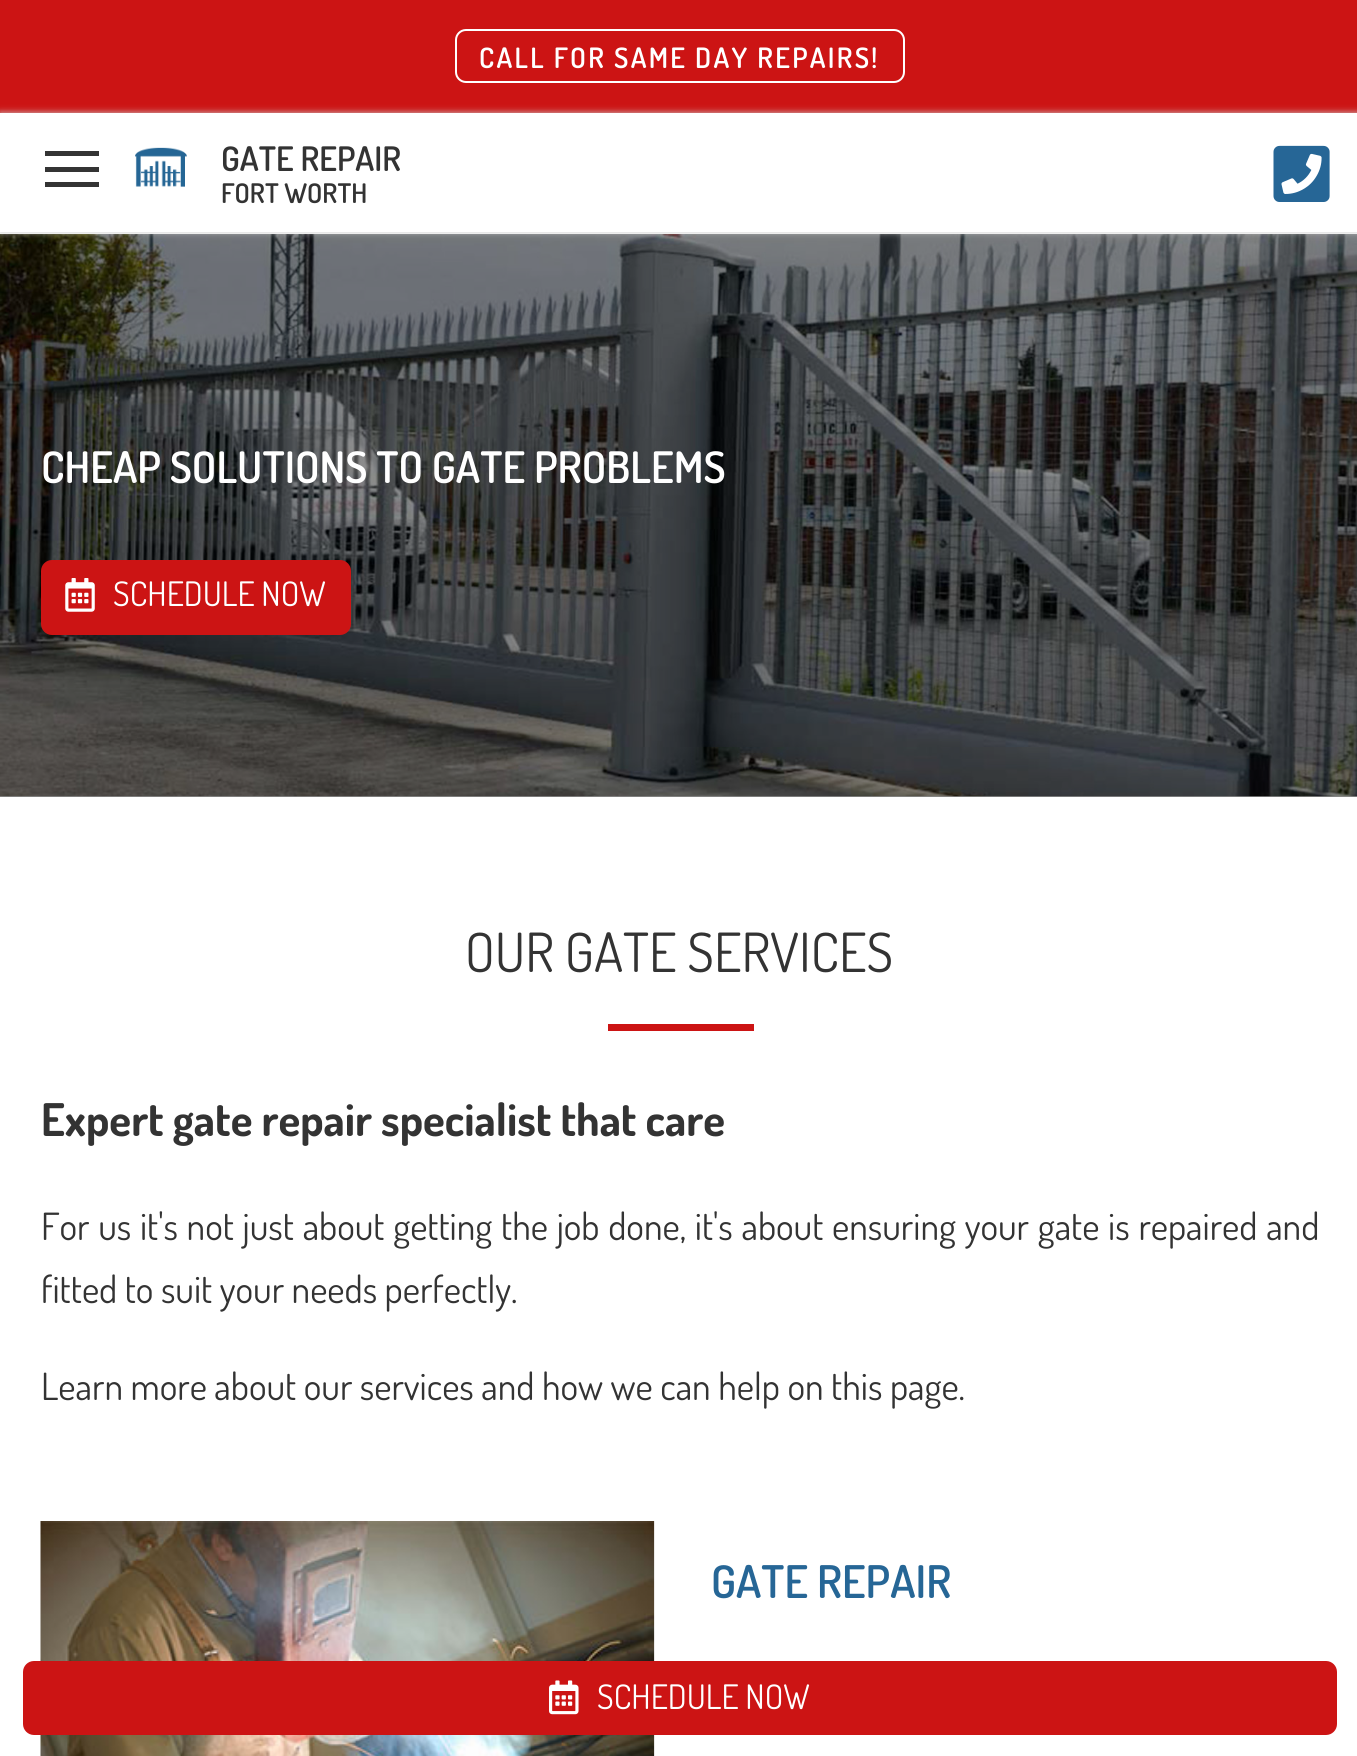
#include <cairo.h>
#include <math.h>
#include <stddef.h>

typedef struct { double x, y, w, h; unsigned color; } box_t;

static void ink(cairo_t *ctx, unsigned color) {
    cairo_set_source_rgb(ctx, (color >> 16) / 255.0, (color >> 8 & 255) / 255.0, (color & 255) / 255.0);
}

static void write_spaced(cairo_t *ctx, double x, double y, const char *s, double letter, double word) {
    cairo_move_to(ctx, x, y);
    while (*s) {
        char ch[5] = {0};
        int n = 0;
        do ch[n++] = *s++; while ((*s & 0xC0) == 0x80);
        cairo_show_text(ctx, ch);
        cairo_rel_move_to(ctx, letter + word * (*ch == ' '), 0);
    }
}

static void round_path(cairo_t *ctx, double x, double y, double w, double h, double r) {
    cairo_new_sub_path(ctx);
    cairo_arc(ctx, x + w - r, y + h - r, r, 0, M_PI / 2);
    cairo_arc(ctx, x + r, y + h - r, r, M_PI / 2, M_PI);
    cairo_arc(ctx, x + r, y + r, r, M_PI, 1.5 * M_PI);
    cairo_arc(ctx, x + w - r, y + r, r, 1.5 * M_PI, 2 * M_PI);
    cairo_close_path(ctx);
}

static void blur_box(cairo_t *ctx, double x, double y, double w, double h, double r, double blur, double alpha) {
    cairo_push_group_with_content(ctx, CAIRO_CONTENT_ALPHA);
    cairo_set_operator(ctx, CAIRO_OPERATOR_SOURCE);
    for (int i = 15; i >= -15 && fmin(w, h) + blur * i / 3 > 0; i -= 2) {
        double e = blur * i / 6;
        cairo_set_source_rgba(ctx, 0, 0, 0, alpha * erfc((i - 1) / 8.5) / 2);
        round_path(ctx, x - e, y - e, w + 2 * e, h + 2 * e, fmax(0, fmin(r + e + blur * .6, fmin(w, h) / 2 + e)));
        cairo_fill(ctx);
    }
    cairo_pattern_t *soft = cairo_pop_group(ctx);
    cairo_mask(ctx, soft);
    cairo_pattern_destroy(soft);
}

static void paste(cairo_t *ctx, const char *path, double x, double y, double w, double h) {
    cairo_surface_t *image = cairo_image_surface_create_from_png(path);
    cairo_save(ctx);
    cairo_set_source_surface(ctx, image, x, y);
    cairo_rectangle(ctx, x, y, w, h);
    cairo_fill(ctx);
    cairo_restore(ctx);
    cairo_surface_destroy(image);
}

int main(void) {
    cairo_surface_t *surface = cairo_image_surface_create(CAIRO_FORMAT_RGB24, 1357, 1756);
    cairo_t *ctx = cairo_create(surface);
    cairo_font_options_t *options = cairo_font_options_create();
    cairo_font_options_set_hint_metrics(options, CAIRO_HINT_METRICS_OFF);
    cairo_font_options_set_hint_style(options, CAIRO_HINT_STYLE_NONE);
    cairo_set_font_options(ctx, options);
    cairo_set_miter_limit(ctx, 4);
    ink(ctx, 0xFFFFFF);
    cairo_paint(ctx);
    ink(ctx, 0x8C8C8C);
    cairo_rectangle(ctx, 0, 796, 1357, 1);
    cairo_fill(ctx);
    ink(ctx, 0xCC1414);
    cairo_rectangle(ctx, 0, 0, 1357, 113);
    cairo_fill(ctx);
    round_path(ctx, 456, 30, 448, 52, 10);
    ink(ctx, 0xFFFFFF);
    cairo_stroke(ctx);
    cairo_select_font_face(ctx, "Dosis SemiBold", CAIRO_FONT_SLANT_NORMAL, CAIRO_FONT_WEIGHT_NORMAL);
    cairo_set_font_size(ctx, 28.1);
    write_spaced(ctx, 479, 68, "CALL FOR SAME DAY REPAIRS!", 2.25, 0);
    paste(ctx, "media/3.png", 0, 234, 1357, 563);
    ink(ctx, 0xCCCCCC);
    blur_box(ctx, 0, 113, 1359, 119, 0, 3.5, 1);
    {
        static const box_t items[] = {
            {0, 113, 1357, 119, 0xFFFFFF},
            {45, 167, 54, 5, 0x343434},
            {45, 151, 54, 5, 0x343434},
            {45, 182, 54, 5, 0x343434},
        };
        for (size_t i = 0; i < sizeof items / sizeof *items; i++) {
            ink(ctx, items[i].color);
            cairo_rectangle(ctx, items[i].x, items[i].y, items[i].w, items[i].h);
            cairo_fill(ctx);
        }
    }
    paste(ctx, "media/1.png", 135, 147, 52, 40);
    cairo_set_font_size(ctx, 33.75);
    ink(ctx, 0x333333);
    cairo_move_to(ctx, 221, 171);
    cairo_show_text(ctx, "GATE REPAIR");
    cairo_set_font_size(ctx, 27);
    cairo_move_to(ctx, 221, 203);
    cairo_show_text(ctx, "FORT WORTH");
    paste(ctx, "media/2.png", 1273, 145, 57, 57);
    cairo_set_font_size(ctx, 43.4);
    ink(ctx, 0xFFFFFF);
    cairo_move_to(ctx, 41, 483);
    cairo_show_text(ctx, "CHEAP SOLUTIONS TO GATE PROBLEMS");
    ink(ctx, 0xCC1414);
    round_path(ctx, 42, 561, 308, 73, 10);
    cairo_fill_preserve(ctx);
    cairo_stroke(ctx);
    paste(ctx, "media/4.png", 65, 578, 30, 34);
    cairo_select_font_face(ctx, "Dosis", CAIRO_FONT_SLANT_NORMAL, CAIRO_FONT_WEIGHT_NORMAL);
    cairo_set_font_size(ctx, 33.75);
    ink(ctx, 0xFFFFFF);
    cairo_move_to(ctx, 113, 606);
    cairo_show_text(ctx, "SCHEDULE NOW");
    cairo_set_font_size(ctx, 54);
    ink(ctx, 0x333333);
    cairo_move_to(ctx, 465, 972);
    cairo_show_text(ctx, "OUR GATE SERVICES");
    ink(ctx, 0xCC1414);
    cairo_rectangle(ctx, 608, 1024, 146, 7);
    cairo_fill(ctx);
    cairo_select_font_face(ctx, "Dosis", CAIRO_FONT_SLANT_NORMAL, CAIRO_FONT_WEIGHT_BOLD);
    cairo_set_font_size(ctx, 45);
    ink(ctx, 0x333333);
    cairo_move_to(ctx, 41, 1136);
    cairo_show_text(ctx, "Expert gate repair specialist that care");
    cairo_select_font_face(ctx, "Dosis", CAIRO_FONT_SLANT_NORMAL, CAIRO_FONT_WEIGHT_NORMAL);
    cairo_set_font_size(ctx, 37.5);
    write_spaced(ctx, 41, 1240, "For us it's not just about getting the job done, it's about ensuring your gate is repaired and", 0, 1.2);
    cairo_move_to(ctx, 41, 1303);
    cairo_show_text(ctx, "fitted to suit your needs perfectly.");
    cairo_move_to(ctx, 41, 1400);
    cairo_show_text(ctx, "Learn more about our services and how we can help on this page.");
    paste(ctx, "media/5.png", 40, 1521, 615, 235);
    cairo_select_font_face(ctx, "Dosis SemiBold", CAIRO_FONT_SLANT_NORMAL, CAIRO_FONT_WEIGHT_NORMAL);
    cairo_set_font_size(ctx, 45);
    ink(ctx, 0x266696);
    cairo_move_to(ctx, 711, 1598);
    cairo_show_text(ctx, "GATE REPAIR");
    ink(ctx, 0xCC1414);
    round_path(ctx, 24, 1662, 1312, 72, 10);
    cairo_fill_preserve(ctx);
    cairo_stroke(ctx);
    paste(ctx, "media/6.png", 549, 1680, 30, 35);
    cairo_select_font_face(ctx, "Dosis", CAIRO_FONT_SLANT_NORMAL, CAIRO_FONT_WEIGHT_NORMAL);
    cairo_set_font_size(ctx, 33.75);
    ink(ctx, 0xFFFFFF);
    cairo_move_to(ctx, 597, 1709);
    cairo_show_text(ctx, "SCHEDULE NOW");
    cairo_surface_write_to_png(surface, "image.png");
    cairo_font_options_destroy(options);
    cairo_destroy(ctx);
    cairo_surface_destroy(surface);
    return 0;
}
